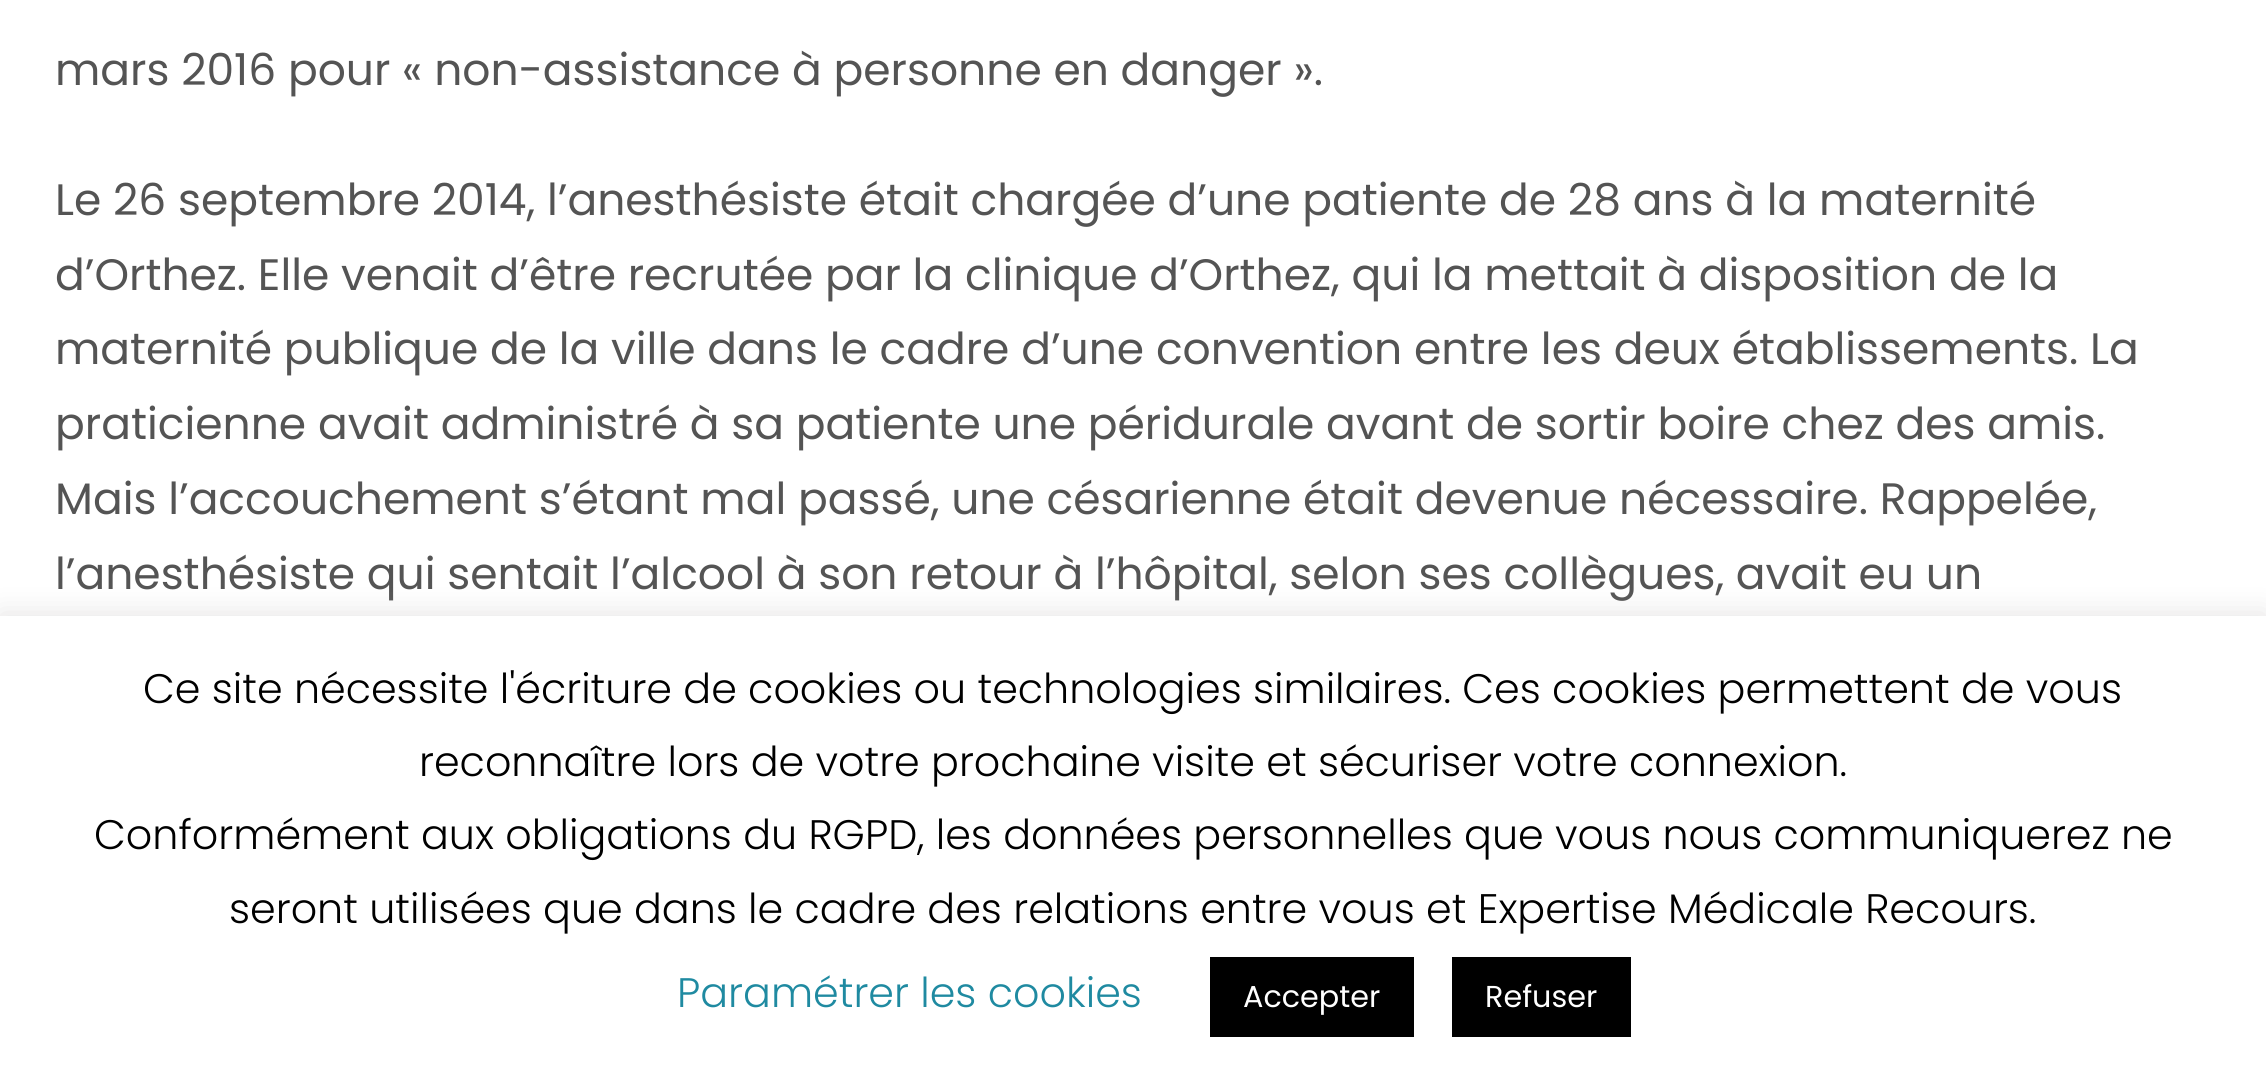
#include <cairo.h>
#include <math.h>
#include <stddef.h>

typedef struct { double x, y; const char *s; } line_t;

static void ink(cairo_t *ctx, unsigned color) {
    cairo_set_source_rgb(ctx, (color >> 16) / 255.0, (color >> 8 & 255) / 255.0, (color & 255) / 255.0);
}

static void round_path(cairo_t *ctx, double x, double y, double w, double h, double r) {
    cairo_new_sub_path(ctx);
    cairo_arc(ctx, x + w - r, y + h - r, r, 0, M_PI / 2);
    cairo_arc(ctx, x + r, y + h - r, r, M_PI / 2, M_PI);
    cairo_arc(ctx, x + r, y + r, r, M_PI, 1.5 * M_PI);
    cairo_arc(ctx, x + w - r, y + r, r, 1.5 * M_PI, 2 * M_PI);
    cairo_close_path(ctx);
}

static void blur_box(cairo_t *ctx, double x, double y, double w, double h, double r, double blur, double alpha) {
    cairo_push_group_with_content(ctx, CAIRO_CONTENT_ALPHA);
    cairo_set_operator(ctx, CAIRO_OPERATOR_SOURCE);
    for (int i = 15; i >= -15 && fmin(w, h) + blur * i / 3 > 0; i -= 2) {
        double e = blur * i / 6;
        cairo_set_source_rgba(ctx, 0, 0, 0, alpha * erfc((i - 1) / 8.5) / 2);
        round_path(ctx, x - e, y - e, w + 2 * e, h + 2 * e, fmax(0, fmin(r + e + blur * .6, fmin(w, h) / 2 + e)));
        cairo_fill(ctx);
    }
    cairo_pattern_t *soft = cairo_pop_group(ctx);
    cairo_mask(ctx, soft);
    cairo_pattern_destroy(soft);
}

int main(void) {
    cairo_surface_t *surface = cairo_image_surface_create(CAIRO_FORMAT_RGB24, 2266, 1083);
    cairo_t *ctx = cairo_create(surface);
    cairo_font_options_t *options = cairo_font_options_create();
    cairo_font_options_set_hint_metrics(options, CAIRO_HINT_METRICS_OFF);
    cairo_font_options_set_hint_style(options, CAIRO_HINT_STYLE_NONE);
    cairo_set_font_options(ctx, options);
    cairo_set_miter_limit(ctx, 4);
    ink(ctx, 0xFFFFFF);
    cairo_paint(ctx);
    cairo_select_font_face(ctx, "Poppins", CAIRO_FONT_SLANT_NORMAL, CAIRO_FONT_WEIGHT_NORMAL);
    cairo_set_font_size(ctx, 44);
    ink(ctx, 0x545454);
    {
        static const line_t items[] = {
            {55, 85, "mars 2016 pour « non-assistance à personne en danger »."},
            {55, 215, "Le 26 septembre 2014, l’anesthésiste était chargée d’une patiente de 28 ans à la maternité"},
            {55, 290, "d’Orthez. Elle venait d’être recrutée par la clinique d’Orthez, qui la mettait à disposition de la"},
            {55, 364, "maternité publique de la ville dans le cadre d’une convention entre les deux établissements. La"},
            {55, 439, "praticienne avait administré à sa patiente une péridurale avant de sortir boire chez des amis."},
            {55, 514, "Mais l’accouchement s’étant mal passé, une césarienne était devenue nécessaire. Rappelée,"},
            {55, 589, "l’anesthésiste qui sentait l’alcool à son retour à l’hôpital, selon ses collègues, avait eu un"},
        };
        for (size_t i = 0; i < sizeof items / sizeof *items; i++) {
            cairo_move_to(ctx, items[i].x, items[i].y);
            cairo_show_text(ctx, items[i].s);
        }
    }
    ink(ctx, 0xACABAB);
    blur_box(ctx, 0, 613, 2266, 468, 0, 14, 0.3);
    ink(ctx, 0xFFFFFF);
    cairo_rectangle(ctx, 0, 616, 2266, 467);
    cairo_fill(ctx);
    cairo_select_font_face(ctx, "Poppins Light", CAIRO_FONT_SLANT_NORMAL, CAIRO_FONT_WEIGHT_NORMAL);
    cairo_set_font_size(ctx, 41.25);
    ink(ctx, 0x000000);
    {
        static const line_t items[] = {
            {143, 703, "Ce site nécessite l'écriture de cookies ou technologies similaires. Ces cookies permettent de vous"},
            {419, 776, "reconnaître lors de votre prochaine visite et sécuriser votre connexion."},
            {94, 849, "Conformément aux obligations du RGPD, les données personnelles que vous nous communiquerez ne"},
            {229, 923, "seront utilisées que dans le cadre des relations entre vous et Expertise Médicale Recours."},
        };
        for (size_t i = 0; i < sizeof items / sizeof *items; i++) {
            cairo_move_to(ctx, items[i].x, items[i].y);
            cairo_show_text(ctx, items[i].s);
        }
    }
    ink(ctx, 0x1F8AA1);
    cairo_move_to(ctx, 677, 1007);
    cairo_show_text(ctx, "Paramétrer les cookies");
    ink(ctx, 0x000000);
    cairo_rectangle(ctx, 1210, 957, 204, 80);
    cairo_fill(ctx);
    cairo_select_font_face(ctx, "Poppins", CAIRO_FONT_SLANT_NORMAL, CAIRO_FONT_WEIGHT_NORMAL);
    cairo_set_font_size(ctx, 30.25);
    ink(ctx, 0xFFFFFF);
    cairo_move_to(ctx, 1243, 1007);
    cairo_show_text(ctx, "Accepter");
    ink(ctx, 0x000000);
    cairo_rectangle(ctx, 1452, 957, 179, 80);
    cairo_fill(ctx);
    ink(ctx, 0xFFFFFF);
    cairo_move_to(ctx, 1485, 1007);
    cairo_show_text(ctx, "Refuser");
    cairo_surface_write_to_png(surface, "image.png");
    cairo_font_options_destroy(options);
    cairo_destroy(ctx);
    cairo_surface_destroy(surface);
    return 0;
}
